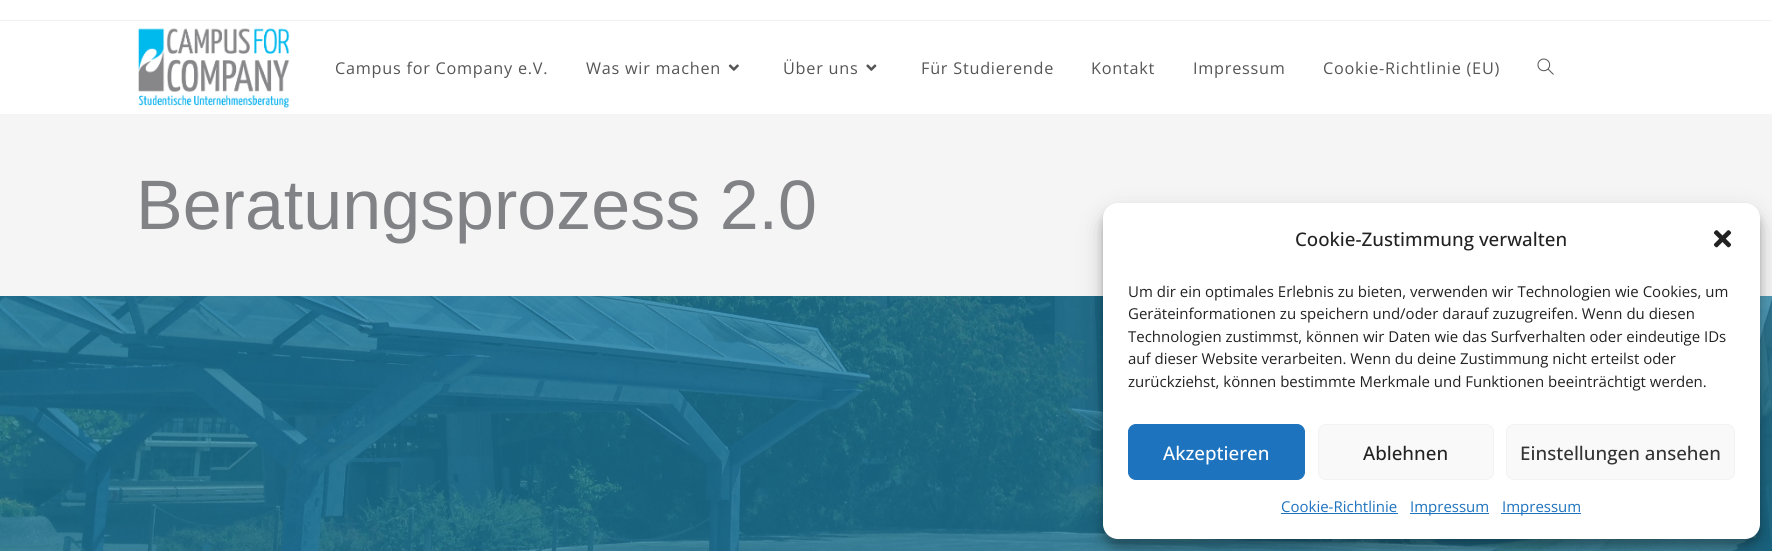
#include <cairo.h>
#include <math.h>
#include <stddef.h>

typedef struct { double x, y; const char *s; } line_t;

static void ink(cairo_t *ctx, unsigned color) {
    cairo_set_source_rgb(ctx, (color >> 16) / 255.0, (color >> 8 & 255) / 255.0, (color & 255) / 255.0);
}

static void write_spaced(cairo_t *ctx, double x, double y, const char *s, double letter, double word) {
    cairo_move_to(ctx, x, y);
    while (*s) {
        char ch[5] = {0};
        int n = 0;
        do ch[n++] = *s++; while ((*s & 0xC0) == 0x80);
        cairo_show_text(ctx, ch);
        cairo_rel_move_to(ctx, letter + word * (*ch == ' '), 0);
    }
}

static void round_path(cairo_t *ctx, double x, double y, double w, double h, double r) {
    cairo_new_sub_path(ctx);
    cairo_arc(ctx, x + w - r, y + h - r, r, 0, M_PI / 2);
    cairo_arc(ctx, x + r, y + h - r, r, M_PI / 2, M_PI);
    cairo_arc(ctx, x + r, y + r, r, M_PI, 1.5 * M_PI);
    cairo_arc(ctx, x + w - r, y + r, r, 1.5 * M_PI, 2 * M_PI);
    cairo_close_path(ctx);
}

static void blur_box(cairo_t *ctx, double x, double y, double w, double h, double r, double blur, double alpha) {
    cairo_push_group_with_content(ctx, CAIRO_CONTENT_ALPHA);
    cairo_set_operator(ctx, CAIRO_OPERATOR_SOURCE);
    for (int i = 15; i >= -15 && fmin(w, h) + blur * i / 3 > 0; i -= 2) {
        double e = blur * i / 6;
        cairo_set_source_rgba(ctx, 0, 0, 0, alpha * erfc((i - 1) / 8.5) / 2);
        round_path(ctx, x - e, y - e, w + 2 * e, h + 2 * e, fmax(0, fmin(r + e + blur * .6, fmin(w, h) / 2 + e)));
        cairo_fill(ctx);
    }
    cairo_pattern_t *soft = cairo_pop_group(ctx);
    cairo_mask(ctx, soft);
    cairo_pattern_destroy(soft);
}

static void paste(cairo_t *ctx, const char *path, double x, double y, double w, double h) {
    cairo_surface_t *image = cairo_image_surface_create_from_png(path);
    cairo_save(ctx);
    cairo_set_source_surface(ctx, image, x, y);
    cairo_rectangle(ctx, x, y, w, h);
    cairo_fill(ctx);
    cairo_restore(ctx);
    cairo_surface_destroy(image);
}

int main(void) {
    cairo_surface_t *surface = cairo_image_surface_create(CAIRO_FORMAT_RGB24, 1772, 551);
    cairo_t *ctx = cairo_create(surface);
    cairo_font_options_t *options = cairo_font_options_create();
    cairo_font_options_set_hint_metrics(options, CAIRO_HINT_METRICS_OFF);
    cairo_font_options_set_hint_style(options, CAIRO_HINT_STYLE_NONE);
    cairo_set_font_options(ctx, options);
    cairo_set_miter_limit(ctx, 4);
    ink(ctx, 0xFFFFFF);
    cairo_paint(ctx);
    ink(ctx, 0xF1F1F1);
    cairo_rectangle(ctx, 0, 20, 1772, 1);
    cairo_fill(ctx);
    paste(ctx, "media/1.png", 138, 28, 152, 80);
    cairo_select_font_face(ctx, "Open Sans", CAIRO_FONT_SLANT_NORMAL, CAIRO_FONT_WEIGHT_NORMAL);
    cairo_set_font_size(ctx, 16.25);
    ink(ctx, 0x555555);
    write_spaced(ctx, 335, 74, "Campus for Company e.V.", 0.75, 0);
    write_spaced(ctx, 586, 74, "Was wir machen", 0.75, 0);
    paste(ctx, "media/2.png", 728, 64, 11, 7);
    write_spaced(ctx, 783, 74, "Über uns", 0.75, 0);
    paste(ctx, "media/3.png", 866, 64, 11, 7);
    {
        static const line_t items[] = {
            {921, 74, "Für Studierende"},
            {1091, 74, "Kontakt"},
            {1193, 74, "Impressum"},
            {1323, 74, "Cookie-Richtlinie (EU)"},
        };
        for (size_t i = 0; i < sizeof items / sizeof *items; i++) {
            write_spaced(ctx, items[i].x, items[i].y, items[i].s, 0.75, 0);
        }
    }
    paste(ctx, "media/4.png", 1537, 58, 17, 17);
    ink(ctx, 0xF5F5F5);
    cairo_rectangle(ctx, 0, 114, 1772, 182);
    cairo_fill(ctx);
    cairo_select_font_face(ctx, "Liberation Sans", CAIRO_FONT_SLANT_NORMAL, CAIRO_FONT_WEIGHT_NORMAL);
    cairo_set_font_size(ctx, 70);
    ink(ctx, 0x818286);
    cairo_move_to(ctx, 136, 229);
    cairo_show_text(ctx, "Beratungsprozess 2.0");
    paste(ctx, "media/5.png", 0, 296, 1772, 255);
    ink(ctx, 0x000000);
    blur_box(ctx, 1103, 210, 657, 336, 15, 4, 0.23);
    blur_box(ctx, 1103, 215, 657, 336, 15, 12.5, 0.19);
    ink(ctx, 0xFFFFFF);
    round_path(ctx, 1103, 203, 657, 336, 15);
    cairo_fill(ctx);
    cairo_select_font_face(ctx, "Open Sans Medium", CAIRO_FONT_SLANT_NORMAL, CAIRO_FONT_WEIGHT_NORMAL);
    cairo_set_font_size(ctx, 18.75);
    ink(ctx, 0x222222);
    cairo_move_to(ctx, 1295, 246);
    cairo_show_text(ctx, "Cookie-Zustimmung verwalten");
    paste(ctx, "media/6.png", 1713, 230, 19, 18);
    cairo_select_font_face(ctx, "Open Sans", CAIRO_FONT_SLANT_NORMAL, CAIRO_FONT_WEIGHT_NORMAL);
    cairo_set_font_size(ctx, 15);
    {
        static const line_t items[] = {
            {1128, 297, "Um dir ein optimales Erlebnis zu bieten, verwenden wir Technologien wie Cookies, um"},
            {1128, 319, "Geräteinformationen zu speichern und/oder darauf zuzugreifen. Wenn du diesen"},
            {1128, 342, "Technologien zustimmst, können wir Daten wie das Surfverhalten oder eindeutige IDs"},
            {1128, 364, "auf dieser Website verarbeiten. Wenn du deine Zustimmung nicht erteilst oder"},
            {1128, 387, "zurückziehst, können bestimmte Merkmale und Funktionen beeinträchtigt werden."},
        };
        for (size_t i = 0; i < sizeof items / sizeof *items; i++) {
            cairo_move_to(ctx, items[i].x, items[i].y);
            cairo_show_text(ctx, items[i].s);
        }
    }
    ink(ctx, 0x1E73BE);
    round_path(ctx, 1128.5, 424.5, 176, 55, 7.5);
    cairo_fill_preserve(ctx);
    cairo_set_line_width(ctx, 1);
    cairo_stroke(ctx);
    cairo_select_font_face(ctx, "Open Sans Medium", CAIRO_FONT_SLANT_NORMAL, CAIRO_FONT_WEIGHT_NORMAL);
    cairo_set_font_size(ctx, 18.75);
    ink(ctx, 0xFFFFFF);
    cairo_move_to(ctx, 1163, 460);
    cairo_show_text(ctx, "Akzeptieren");
    ink(ctx, 0xF9F9F9);
    round_path(ctx, 1318.5, 424.5, 175, 55, 7.5);
    cairo_fill_preserve(ctx);
    ink(ctx, 0xF2F2F2);
    cairo_stroke(ctx);
    ink(ctx, 0x222222);
    cairo_move_to(ctx, 1363, 460);
    cairo_show_text(ctx, "Ablehnen");
    ink(ctx, 0xF9F9F9);
    round_path(ctx, 1506.5, 424.5, 228, 55, 7.5);
    cairo_fill_preserve(ctx);
    ink(ctx, 0xF2F2F2);
    cairo_stroke(ctx);
    ink(ctx, 0x333333);
    cairo_move_to(ctx, 1520, 460);
    cairo_show_text(ctx, "Einstellungen ansehen");
    cairo_select_font_face(ctx, "Open Sans", CAIRO_FONT_SLANT_NORMAL, CAIRO_FONT_WEIGHT_NORMAL);
    cairo_set_font_size(ctx, 15);
    ink(ctx, 0x1E73BE);
    cairo_move_to(ctx, 1281, 512);
    cairo_show_text(ctx, "Cookie-Richtlinie");
    cairo_rectangle(ctx, 1281, 513, 117, 1);
    cairo_fill(ctx);
    cairo_rectangle(ctx, 1410, 513, 79, 1);
    cairo_fill(ctx);
    cairo_move_to(ctx, 1410, 512);
    cairo_show_text(ctx, "Impressum");
    cairo_rectangle(ctx, 1501, 513, 80, 1);
    cairo_fill(ctx);
    cairo_move_to(ctx, 1502, 512);
    cairo_show_text(ctx, "Impressum");
    cairo_surface_write_to_png(surface, "image.png");
    cairo_font_options_destroy(options);
    cairo_destroy(ctx);
    cairo_surface_destroy(surface);
    return 0;
}
